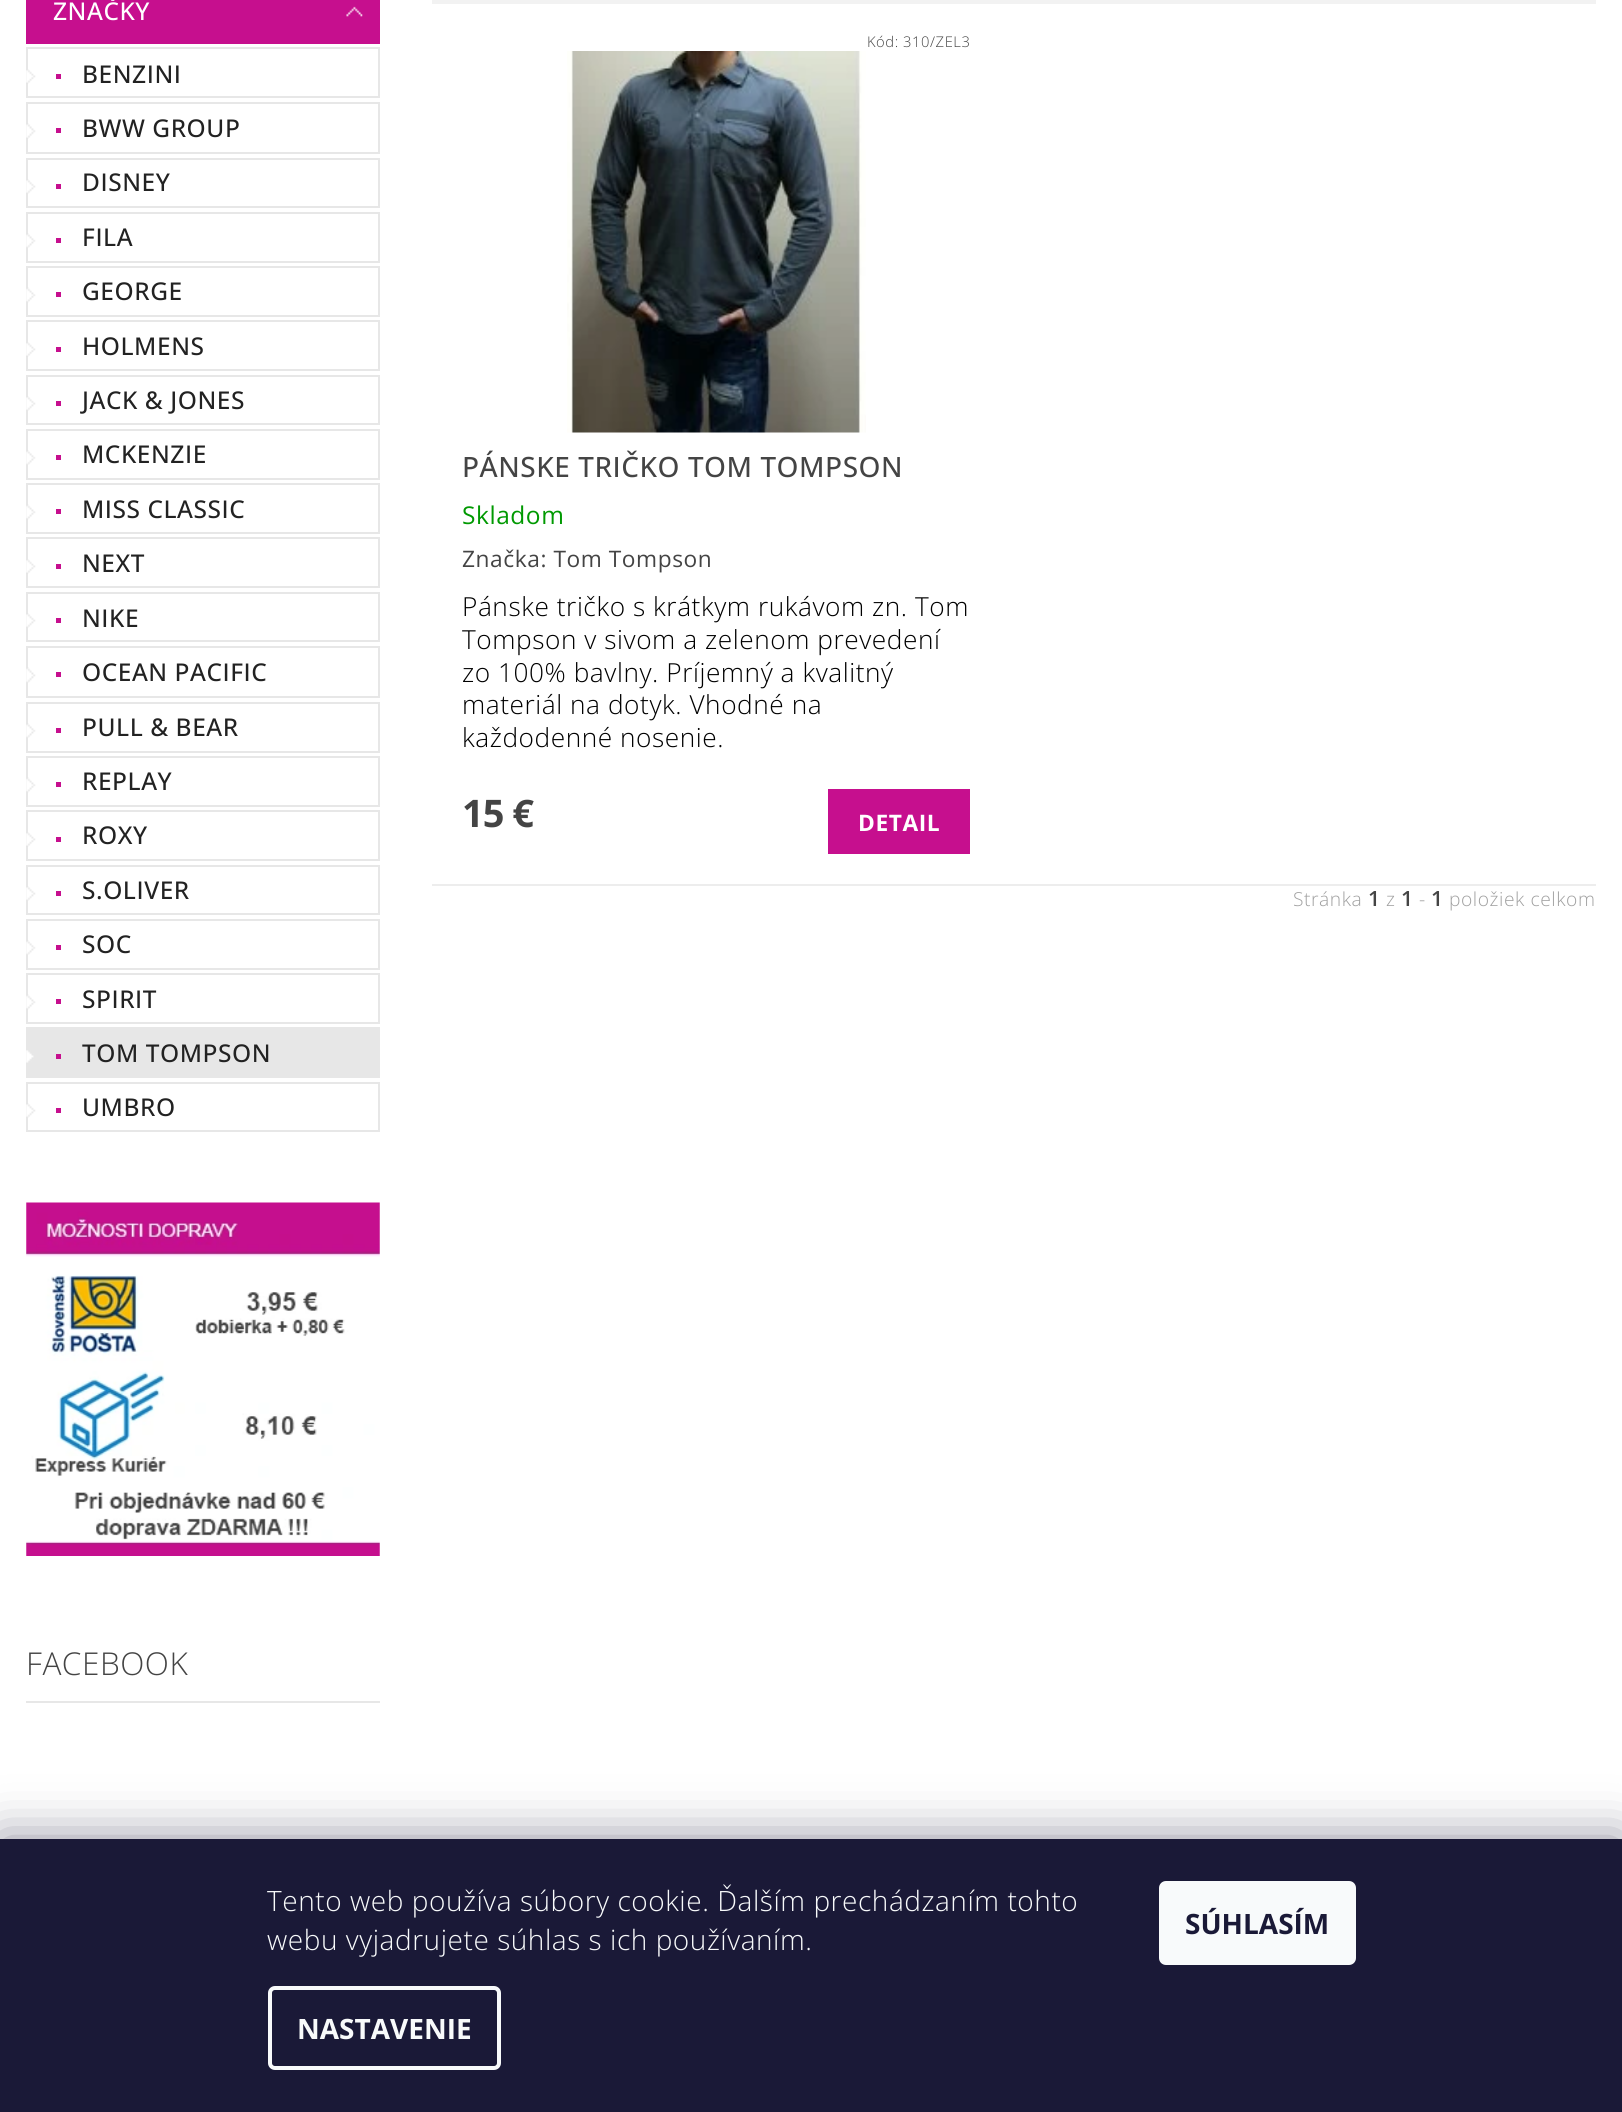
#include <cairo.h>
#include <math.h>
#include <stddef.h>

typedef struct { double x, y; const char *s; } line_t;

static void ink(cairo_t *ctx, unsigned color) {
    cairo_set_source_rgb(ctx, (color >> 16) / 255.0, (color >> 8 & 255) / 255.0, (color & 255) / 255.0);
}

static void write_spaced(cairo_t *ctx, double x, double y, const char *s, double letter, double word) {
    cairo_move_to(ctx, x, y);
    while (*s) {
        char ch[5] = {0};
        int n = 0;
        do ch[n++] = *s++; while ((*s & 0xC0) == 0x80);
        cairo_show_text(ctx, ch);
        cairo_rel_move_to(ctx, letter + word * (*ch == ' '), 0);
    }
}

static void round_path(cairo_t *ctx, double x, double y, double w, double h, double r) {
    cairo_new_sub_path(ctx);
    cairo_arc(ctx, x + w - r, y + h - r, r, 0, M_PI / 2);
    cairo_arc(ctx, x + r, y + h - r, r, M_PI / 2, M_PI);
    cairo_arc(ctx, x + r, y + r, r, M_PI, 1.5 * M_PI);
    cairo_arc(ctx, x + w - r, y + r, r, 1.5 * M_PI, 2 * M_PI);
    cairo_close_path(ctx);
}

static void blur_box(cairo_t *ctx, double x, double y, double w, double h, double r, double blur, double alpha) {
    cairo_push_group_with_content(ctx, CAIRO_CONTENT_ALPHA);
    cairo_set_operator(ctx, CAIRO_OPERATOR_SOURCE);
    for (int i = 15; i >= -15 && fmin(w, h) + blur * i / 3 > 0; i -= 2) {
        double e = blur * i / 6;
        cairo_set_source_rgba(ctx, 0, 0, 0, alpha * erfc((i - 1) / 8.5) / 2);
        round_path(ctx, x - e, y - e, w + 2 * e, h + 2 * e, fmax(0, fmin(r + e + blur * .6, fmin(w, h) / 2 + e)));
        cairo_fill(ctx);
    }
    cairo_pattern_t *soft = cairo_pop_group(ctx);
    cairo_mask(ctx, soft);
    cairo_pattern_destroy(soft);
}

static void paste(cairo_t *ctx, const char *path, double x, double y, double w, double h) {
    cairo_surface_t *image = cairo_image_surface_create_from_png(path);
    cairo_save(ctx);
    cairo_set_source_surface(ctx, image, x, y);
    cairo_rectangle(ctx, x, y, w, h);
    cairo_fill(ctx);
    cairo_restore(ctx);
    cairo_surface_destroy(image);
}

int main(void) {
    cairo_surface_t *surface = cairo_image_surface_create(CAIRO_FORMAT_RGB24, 1622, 2112);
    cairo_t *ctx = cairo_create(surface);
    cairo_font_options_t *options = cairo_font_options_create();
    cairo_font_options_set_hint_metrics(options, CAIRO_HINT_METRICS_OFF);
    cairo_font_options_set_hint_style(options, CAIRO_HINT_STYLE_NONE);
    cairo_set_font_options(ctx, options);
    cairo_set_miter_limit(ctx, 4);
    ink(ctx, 0xFFFFFF);
    cairo_paint(ctx);
    ink(ctx, 0xC60F8E);
    cairo_rectangle(ctx, 26, 0, 354, 44);
    cairo_fill(ctx);
    paste(ctx, "media/1.png", 346, 6, 17, 11);
    cairo_select_font_face(ctx, "Open Sans Medium", CAIRO_FONT_SLANT_NORMAL, CAIRO_FONT_WEIGHT_NORMAL);
    cairo_set_font_size(ctx, 24.5);
    ink(ctx, 0xFFFFFF);
    write_spaced(ctx, 53, 20, "ZNAČKY", 0.55, 0);
    cairo_rectangle(ctx, 27, 48, 352, 49);
    ink(ctx, 0xE7E7E7);
    cairo_stroke(ctx);
    paste(ctx, "media/2.png", 26, 69, 10, 15);
    ink(ctx, 0xC60F8E);
    cairo_rectangle(ctx, 56, 74, 5, 5);
    cairo_fill(ctx);
    ink(ctx, 0x222222);
    write_spaced(ctx, 82, 83, "BENZINI", 0.55, 0);
    cairo_rectangle(ctx, 27, 103, 352, 50);
    ink(ctx, 0xE7E7E7);
    cairo_stroke(ctx);
    paste(ctx, "media/3.png", 26, 123, 10, 16);
    ink(ctx, 0xC60F8E);
    cairo_rectangle(ctx, 56, 128, 5, 5);
    cairo_fill(ctx);
    ink(ctx, 0x222222);
    write_spaced(ctx, 82, 137, "BWW GROUP", 0.55, 0);
    cairo_rectangle(ctx, 27, 159, 352, 48);
    ink(ctx, 0xE7E7E7);
    cairo_stroke(ctx);
    paste(ctx, "media/4.png", 26, 179, 10, 15);
    ink(ctx, 0xC60F8E);
    cairo_rectangle(ctx, 56, 184, 5, 5);
    cairo_fill(ctx);
    ink(ctx, 0x222222);
    write_spaced(ctx, 82, 191, "DISNEY", 0.55, 0);
    cairo_rectangle(ctx, 27, 213, 352, 49);
    ink(ctx, 0xE7E7E7);
    cairo_stroke(ctx);
    paste(ctx, "media/5.png", 26, 233, 10, 15);
    ink(ctx, 0xC60F8E);
    cairo_rectangle(ctx, 56, 238, 5, 5);
    cairo_fill(ctx);
    ink(ctx, 0x222222);
    write_spaced(ctx, 82, 246, "FILA", 0.55, 0);
    cairo_rectangle(ctx, 27, 267, 352, 49);
    ink(ctx, 0xE7E7E7);
    cairo_stroke(ctx);
    paste(ctx, "media/6.png", 26, 287, 10, 16);
    ink(ctx, 0xC60F8E);
    cairo_rectangle(ctx, 56, 292, 5, 5);
    cairo_fill(ctx);
    ink(ctx, 0x222222);
    write_spaced(ctx, 82, 300, "GEORGE", 0.55, 0);
    cairo_rectangle(ctx, 27, 321, 352, 49);
    ink(ctx, 0xE7E7E7);
    cairo_stroke(ctx);
    paste(ctx, "media/2.png", 26, 342, 10, 15);
    ink(ctx, 0xC60F8E);
    cairo_rectangle(ctx, 56, 347, 5, 5);
    cairo_fill(ctx);
    ink(ctx, 0x222222);
    write_spaced(ctx, 82, 355, "HOLMENS", 0.55, 0);
    cairo_rectangle(ctx, 27, 376, 352, 48);
    ink(ctx, 0xE7E7E7);
    cairo_stroke(ctx);
    paste(ctx, "media/4.png", 26, 396, 10, 15);
    ink(ctx, 0xC60F8E);
    cairo_rectangle(ctx, 56, 401, 5, 5);
    cairo_fill(ctx);
    ink(ctx, 0x222222);
    write_spaced(ctx, 82, 409, "JACK & JONES", 0.55, 0);
    cairo_rectangle(ctx, 27, 430, 352, 49);
    ink(ctx, 0xE7E7E7);
    cairo_stroke(ctx);
    paste(ctx, "media/5.png", 26, 450, 10, 15);
    ink(ctx, 0xC60F8E);
    cairo_rectangle(ctx, 56, 455, 5, 5);
    cairo_fill(ctx);
    ink(ctx, 0x222222);
    write_spaced(ctx, 82, 463, "MCKENZIE", 0.55, 0);
    cairo_rectangle(ctx, 27, 484, 352, 49);
    ink(ctx, 0xE7E7E7);
    cairo_stroke(ctx);
    paste(ctx, "media/6.png", 26, 504, 10, 16);
    ink(ctx, 0xC60F8E);
    cairo_rectangle(ctx, 56, 509, 5, 5);
    cairo_fill(ctx);
    ink(ctx, 0x222222);
    write_spaced(ctx, 82, 518, "MISS CLASSIC", 0.55, 0);
    cairo_rectangle(ctx, 27, 538, 352, 49);
    ink(ctx, 0xE7E7E7);
    cairo_stroke(ctx);
    paste(ctx, "media/2.png", 26, 559, 10, 15);
    ink(ctx, 0xC60F8E);
    cairo_rectangle(ctx, 56, 564, 5, 5);
    cairo_fill(ctx);
    ink(ctx, 0x222222);
    write_spaced(ctx, 82, 572, "NEXT", 0.55, 0);
    cairo_rectangle(ctx, 27, 593, 352, 48);
    ink(ctx, 0xE7E7E7);
    cairo_stroke(ctx);
    paste(ctx, "media/4.png", 26, 613, 10, 15);
    ink(ctx, 0xC60F8E);
    cairo_rectangle(ctx, 56, 618, 5, 5);
    cairo_fill(ctx);
    ink(ctx, 0x222222);
    write_spaced(ctx, 82, 627, "NIKE", 0.55, 0);
    cairo_rectangle(ctx, 27, 647, 352, 50);
    ink(ctx, 0xE7E7E7);
    cairo_stroke(ctx);
    paste(ctx, "media/7.png", 26, 667, 10, 16);
    ink(ctx, 0xC60F8E);
    cairo_rectangle(ctx, 56, 672, 5, 5);
    cairo_fill(ctx);
    ink(ctx, 0x222222);
    write_spaced(ctx, 82, 681, "OCEAN PACIFIC", 0.55, 0);
    cairo_rectangle(ctx, 27, 703, 352, 49);
    ink(ctx, 0xE7E7E7);
    cairo_stroke(ctx);
    paste(ctx, "media/5.png", 26, 723, 10, 15);
    ink(ctx, 0xC60F8E);
    cairo_rectangle(ctx, 56, 728, 5, 5);
    cairo_fill(ctx);
    ink(ctx, 0x222222);
    write_spaced(ctx, 82, 736, "PULL & BEAR", 0.55, 0);
    cairo_rectangle(ctx, 27, 757, 352, 49);
    ink(ctx, 0xE7E7E7);
    cairo_stroke(ctx);
    paste(ctx, "media/6.png", 26, 777, 10, 16);
    ink(ctx, 0xC60F8E);
    cairo_rectangle(ctx, 56, 782, 5, 5);
    cairo_fill(ctx);
    ink(ctx, 0x222222);
    write_spaced(ctx, 82, 790, "REPLAY", 0.55, 0);
    cairo_rectangle(ctx, 27, 811, 352, 49);
    ink(ctx, 0xE7E7E7);
    cairo_stroke(ctx);
    paste(ctx, "media/2.png", 26, 832, 10, 15);
    ink(ctx, 0xC60F8E);
    cairo_rectangle(ctx, 56, 837, 5, 5);
    cairo_fill(ctx);
    ink(ctx, 0x222222);
    write_spaced(ctx, 82, 844, "ROXY", 0.55, 0);
    cairo_rectangle(ctx, 27, 866, 352, 48);
    ink(ctx, 0xE7E7E7);
    cairo_stroke(ctx);
    paste(ctx, "media/4.png", 26, 886, 10, 15);
    ink(ctx, 0xC60F8E);
    cairo_rectangle(ctx, 56, 891, 5, 5);
    cairo_fill(ctx);
    ink(ctx, 0x222222);
    write_spaced(ctx, 82, 899, "S.OLIVER", 0.55, 0);
    cairo_rectangle(ctx, 27, 920, 352, 49);
    ink(ctx, 0xE7E7E7);
    cairo_stroke(ctx);
    paste(ctx, "media/5.png", 26, 940, 10, 15);
    ink(ctx, 0xC60F8E);
    cairo_rectangle(ctx, 56, 945, 5, 5);
    cairo_fill(ctx);
    ink(ctx, 0x222222);
    write_spaced(ctx, 82, 953, "SOC", 0.55, 0);
    cairo_rectangle(ctx, 27, 974, 352, 49);
    ink(ctx, 0xE7E7E7);
    cairo_stroke(ctx);
    paste(ctx, "media/6.png", 26, 994, 10, 16);
    ink(ctx, 0xC60F8E);
    cairo_rectangle(ctx, 56, 999, 5, 5);
    cairo_fill(ctx);
    ink(ctx, 0x222222);
    write_spaced(ctx, 82, 1008, "SPIRIT", 0.55, 0);
    cairo_rectangle(ctx, 27, 1028, 352, 49);
    ink(ctx, 0xE7E7E7);
    cairo_stroke(ctx);
    cairo_rectangle(ctx, 28, 1029, 350, 47);
    cairo_fill(ctx);
    paste(ctx, "media/8.png", 26, 1050, 8, 13);
    ink(ctx, 0xC60F8E);
    cairo_rectangle(ctx, 56, 1054, 5, 5);
    cairo_fill(ctx);
    ink(ctx, 0x222222);
    write_spaced(ctx, 82, 1062, "TOM TOMPSON", 0.55, 0);
    cairo_rectangle(ctx, 27, 1083, 352, 48);
    ink(ctx, 0xE7E7E7);
    cairo_stroke(ctx);
    paste(ctx, "media/4.png", 26, 1103, 10, 15);
    ink(ctx, 0xC60F8E);
    cairo_rectangle(ctx, 56, 1108, 5, 5);
    cairo_fill(ctx);
    ink(ctx, 0x222222);
    write_spaced(ctx, 82, 1116, "UMBRO", 0.55, 0);
    paste(ctx, "media/9.png", 26, 1202, 354, 354);
    ink(ctx, 0xE7E7E7);
    cairo_rectangle(ctx, 26, 1701, 354, 2);
    cairo_fill(ctx);
    cairo_select_font_face(ctx, "Open Sans Light", CAIRO_FONT_SLANT_NORMAL, CAIRO_FONT_WEIGHT_NORMAL);
    cairo_set_font_size(ctx, 31.5);
    ink(ctx, 0x444444);
    write_spaced(ctx, 26, 1675, "FACEBOOK", 0.55, 0);
    ink(ctx, 0xF2F2F2);
    cairo_rectangle(ctx, 432, 0, 1164, 4);
    cairo_fill(ctx);
    cairo_set_font_size(ctx, 14.75);
    ink(ctx, 0x444444);
    write_spaced(ctx, 867, 47, "Kód: 310/ZEL3", 0.55, 0);
    paste(ctx, "media/10.png", 567, 51, 299, 382);
    cairo_select_font_face(ctx, "Open Sans Medium", CAIRO_FONT_SLANT_NORMAL, CAIRO_FONT_WEIGHT_NORMAL);
    cairo_set_font_size(ctx, 28);
    write_spaced(ctx, 462, 477, "PÁNSKE TRIČKO TOM TOMPSON", 0.55, 0);
    cairo_select_font_face(ctx, "Open Sans", CAIRO_FONT_SLANT_NORMAL, CAIRO_FONT_WEIGHT_NORMAL);
    cairo_set_font_size(ctx, 24.5);
    ink(ctx, 0x009901);
    write_spaced(ctx, 462, 524, "Skladom", 0.55, 0);
    cairo_set_font_size(ctx, 22.75);
    ink(ctx, 0x444444);
    write_spaced(ctx, 462, 567, "Značka: Tom Tompson", 0.55, 0);
    cairo_select_font_face(ctx, "Open Sans Light", CAIRO_FONT_SLANT_NORMAL, CAIRO_FONT_WEIGHT_NORMAL);
    cairo_set_font_size(ctx, 26.25);
    ink(ctx, 0x000000);
    {
        static const line_t items[] = {
            {462, 616, "Pánske tričko s krátkym rukávom zn. Tom"},
            {462, 649, "Tompson v sivom a zelenom prevedení"},
            {462, 682, "zo 100% bavlny. Príjemný a kvalitný"},
            {462, 714, "materiál na dotyk. Vhodné na"},
            {462, 747, "každodenné nosenie."},
        };
        for (size_t i = 0; i < sizeof items / sizeof *items; i++) {
            write_spaced(ctx, items[i].x, items[i].y, items[i].s, 0.55, 0);
        }
    }
    cairo_select_font_face(ctx, "Open Sans", CAIRO_FONT_SLANT_NORMAL, CAIRO_FONT_WEIGHT_BOLD);
    cairo_set_font_size(ctx, 38);
    ink(ctx, 0x444444);
    write_spaced(ctx, 462, 827, "15 €", -1, 0);
    cairo_rectangle(ctx, 829, 790, 140, 63);
    ink(ctx, 0xC60F8E);
    cairo_stroke(ctx);
    cairo_rectangle(ctx, 830, 791, 138, 61);
    cairo_fill(ctx);
    cairo_set_font_size(ctx, 22.75);
    ink(ctx, 0xFFFFFF);
    write_spaced(ctx, 858, 831, "DETAIL", 0.55, 0);
    ink(ctx, 0xEDEDED);
    cairo_rectangle(ctx, 432, 884, 1164, 2);
    cairo_fill(ctx);
    cairo_select_font_face(ctx, "Open Sans Light", CAIRO_FONT_SLANT_NORMAL, CAIRO_FONT_WEIGHT_NORMAL);
    cairo_set_font_size(ctx, 19.25);
    ink(ctx, 0xA0A0A0);
    write_spaced(ctx, 1293, 906, "Stránka", 0.55, 0);
    cairo_select_font_face(ctx, "Open Sans SemiBold", CAIRO_FONT_SLANT_NORMAL, CAIRO_FONT_WEIGHT_NORMAL);
    cairo_set_font_size(ctx, 21);
    ink(ctx, 0x444444);
    write_spaced(ctx, 1368, 906, "1", 0.55, 0);
    cairo_select_font_face(ctx, "Open Sans Light", CAIRO_FONT_SLANT_NORMAL, CAIRO_FONT_WEIGHT_NORMAL);
    cairo_set_font_size(ctx, 19.25);
    ink(ctx, 0xA0A0A0);
    write_spaced(ctx, 1386, 906, "z", 0.55, 0);
    cairo_select_font_face(ctx, "Open Sans SemiBold", CAIRO_FONT_SLANT_NORMAL, CAIRO_FONT_WEIGHT_NORMAL);
    cairo_set_font_size(ctx, 21);
    ink(ctx, 0x444444);
    write_spaced(ctx, 1401, 906, "1", 0.55, 0);
    cairo_select_font_face(ctx, "Open Sans Light", CAIRO_FONT_SLANT_NORMAL, CAIRO_FONT_WEIGHT_NORMAL);
    cairo_set_font_size(ctx, 19.25);
    ink(ctx, 0xA0A0A0);
    write_spaced(ctx, 1419, 906, "-", 0.55, 0);
    cairo_select_font_face(ctx, "Open Sans SemiBold", CAIRO_FONT_SLANT_NORMAL, CAIRO_FONT_WEIGHT_NORMAL);
    cairo_set_font_size(ctx, 21);
    ink(ctx, 0x444444);
    write_spaced(ctx, 1431, 906, "1", 0.55, 0);
    cairo_select_font_face(ctx, "Open Sans Light", CAIRO_FONT_SLANT_NORMAL, CAIRO_FONT_WEIGHT_NORMAL);
    cairo_set_font_size(ctx, 19.25);
    ink(ctx, 0xA0A0A0);
    write_spaced(ctx, 1449, 906, "položiek celkom", 0.55, 0);
    ink(ctx, 0x1B1939);
    blur_box(ctx, 0, 1839, 1622, 273, 0, 26, 0.5);
    ink(ctx, 0x1A1937);
    cairo_rectangle(ctx, 0, 1839, 1622, 273);
    cairo_fill(ctx);
    cairo_set_font_size(ctx, 28);
    ink(ctx, 0xF8FAFB);
    write_spaced(ctx, 267, 1911, "Tento web používa súbory cookie. Ďalším prechádzaním tohto", 0.55, 0);
    write_spaced(ctx, 267, 1950, "webu vyjadrujete súhlas s ich používaním.", 0.55, 0);
    round_path(ctx, 270, 1988, 229, 80, 5);
    cairo_set_line_width(ctx, 4);
    cairo_stroke(ctx);
    cairo_select_font_face(ctx, "Open Sans", CAIRO_FONT_SLANT_NORMAL, CAIRO_FONT_WEIGHT_BOLD);
    cairo_move_to(ctx, 297, 2039);
    cairo_show_text(ctx, "NASTAVENIE");
    round_path(ctx, 1159, 1881, 197, 84, 7);
    cairo_fill(ctx);
    ink(ctx, 0x1A1937);
    cairo_move_to(ctx, 1185, 1934);
    cairo_show_text(ctx, "SÚHLASÍM");
    cairo_surface_write_to_png(surface, "image.png");
    cairo_font_options_destroy(options);
    cairo_destroy(ctx);
    cairo_surface_destroy(surface);
    return 0;
}
